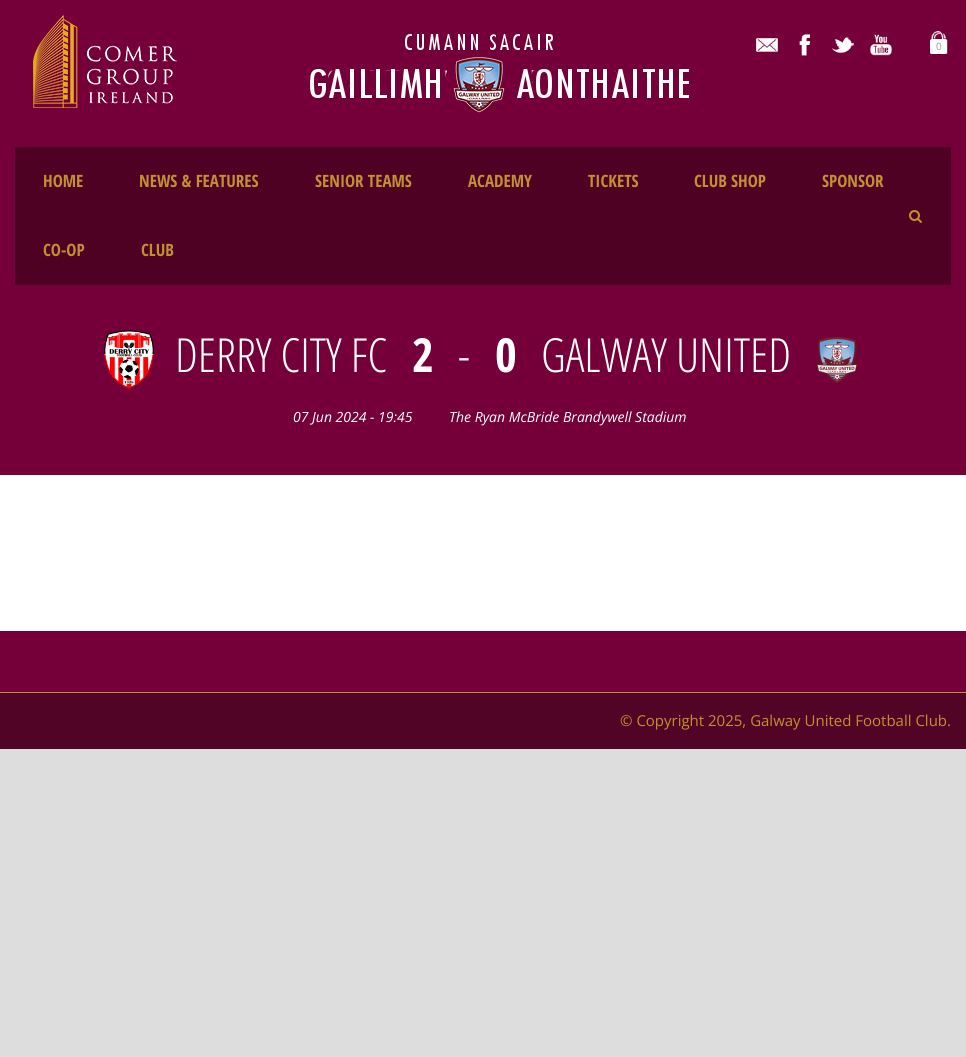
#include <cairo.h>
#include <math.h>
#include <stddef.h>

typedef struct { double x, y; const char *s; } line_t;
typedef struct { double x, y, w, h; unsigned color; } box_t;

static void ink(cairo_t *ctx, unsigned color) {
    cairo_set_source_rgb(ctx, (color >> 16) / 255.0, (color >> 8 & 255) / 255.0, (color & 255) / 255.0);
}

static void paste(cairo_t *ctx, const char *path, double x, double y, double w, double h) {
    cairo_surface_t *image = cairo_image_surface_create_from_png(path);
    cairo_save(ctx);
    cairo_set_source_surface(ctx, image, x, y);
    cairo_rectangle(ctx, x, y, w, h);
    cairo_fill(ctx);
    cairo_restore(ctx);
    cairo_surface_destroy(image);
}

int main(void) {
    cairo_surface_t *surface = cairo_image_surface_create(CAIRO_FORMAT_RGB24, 966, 1057);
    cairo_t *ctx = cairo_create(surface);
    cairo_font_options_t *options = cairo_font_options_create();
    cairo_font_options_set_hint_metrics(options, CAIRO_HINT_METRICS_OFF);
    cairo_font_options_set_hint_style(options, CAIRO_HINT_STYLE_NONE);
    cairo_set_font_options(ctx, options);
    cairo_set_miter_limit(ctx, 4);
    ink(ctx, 0xDDDDDD);
    cairo_paint(ctx);
    ink(ctx, 0xFFFFFF);
    cairo_rectangle(ctx, 0, 475, 966, 156);
    cairo_fill(ctx);
    ink(ctx, 0x750039);
    cairo_rectangle(ctx, 0, 0, 966, 475);
    cairo_fill(ctx);
    paste(ctx, "media/1.png", 33, 15, 144, 93);
    paste(ctx, "media/2.png", 756, 38, 22, 14);
    paste(ctx, "media/3.png", 799, 34, 11, 22);
    paste(ctx, "media/4.png", 832, 37, 22, 17);
    paste(ctx, "media/5.png", 870, 34, 22, 22);
    paste(ctx, "media/6.png", 930, 31, 18, 23);
    cairo_select_font_face(ctx, "Open Sans", CAIRO_FONT_SLANT_NORMAL, CAIRO_FONT_WEIGHT_NORMAL);
    cairo_set_font_size(ctx, 10);
    ink(ctx, 0x999999);
    cairo_move_to(ctx, 936, 50);
    cairo_show_text(ctx, "0");
    paste(ctx, "media/7.png", 310, 34, 379, 79);
    ink(ctx, 0x4E0123);
    cairo_rectangle(ctx, 15, 147, 936, 138);
    cairo_fill(ctx);
    cairo_select_font_face(ctx, "Open Sans Condensed", CAIRO_FONT_SLANT_NORMAL, CAIRO_FONT_WEIGHT_BOLD);
    cairo_set_font_size(ctx, 17);
    ink(ctx, 0xC19030);
    {
        static const line_t items[] = {
            {43, 187, "HOME"},
            {139, 187, "NEWS & FEATURES"},
            {315, 187, "SENIOR TEAMS"},
            {468, 187, "ACADEMY"},
            {588, 187, "TICKETS"},
            {694, 187, "CLUB SHOP"},
            {822, 187, "SPONSOR"},
            {43, 256, "CO-OP"},
            {141, 256, "CLUB"},
        };
        for (size_t i = 0; i < sizeof items / sizeof *items; i++) {
            cairo_move_to(ctx, items[i].x, items[i].y);
            cairo_show_text(ctx, items[i].s);
        }
    }
    paste(ctx, "media/8.png", 909, 210, 13, 13);
    paste(ctx, "media/9.png", 104, 330, 50, 59);
    cairo_select_font_face(ctx, "Open Sans Condensed Light", CAIRO_FONT_SLANT_NORMAL, CAIRO_FONT_WEIGHT_NORMAL);
    cairo_set_font_size(ctx, 47);
    ink(ctx, 0xFFFFFF);
    cairo_move_to(ctx, 175, 372);
    cairo_show_text(ctx, "DERRY CITY FC");
    cairo_select_font_face(ctx, "Open Sans Condensed", CAIRO_FONT_SLANT_NORMAL, CAIRO_FONT_WEIGHT_BOLD);
    cairo_move_to(ctx, 412, 372);
    cairo_show_text(ctx, "2");
    cairo_select_font_face(ctx, "Open Sans Condensed Light", CAIRO_FONT_SLANT_NORMAL, CAIRO_FONT_WEIGHT_NORMAL);
    cairo_move_to(ctx, 458, 372);
    cairo_show_text(ctx, "-");
    cairo_select_font_face(ctx, "Open Sans Condensed", CAIRO_FONT_SLANT_NORMAL, CAIRO_FONT_WEIGHT_BOLD);
    cairo_move_to(ctx, 495, 372);
    cairo_show_text(ctx, "0");
    cairo_select_font_face(ctx, "Open Sans Condensed Light", CAIRO_FONT_SLANT_NORMAL, CAIRO_FONT_WEIGHT_NORMAL);
    cairo_move_to(ctx, 541, 372);
    cairo_show_text(ctx, "GALWAY UNITED");
    paste(ctx, "media/10.png", 816, 337, 42, 46);
    cairo_select_font_face(ctx, "Open Sans", CAIRO_FONT_SLANT_ITALIC, CAIRO_FONT_WEIGHT_NORMAL);
    cairo_set_font_size(ctx, 14);
    cairo_move_to(ctx, 293, 422);
    cairo_show_text(ctx, "07 Jun 2024 - 19:45");
    cairo_move_to(ctx, 449, 422);
    cairo_show_text(ctx, "The Ryan McBride Brandywell Stadium");
    {
        static const box_t items[] = {
            {0, 631, 966, 61, 0x750039},
            {0, 693, 966, 56, 0x520427},
            {0, 692, 966, 1, 0xC19030},
        };
        for (size_t i = 0; i < sizeof items / sizeof *items; i++) {
            ink(ctx, items[i].color);
            cairo_rectangle(ctx, items[i].x, items[i].y, items[i].w, items[i].h);
            cairo_fill(ctx);
        }
    }
    cairo_select_font_face(ctx, "Open Sans", CAIRO_FONT_SLANT_NORMAL, CAIRO_FONT_WEIGHT_NORMAL);
    cairo_set_font_size(ctx, 15);
    cairo_move_to(ctx, 620, 726);
    cairo_show_text(ctx, "© Copyright 2025, Galway United Football Club.");
    cairo_surface_write_to_png(surface, "image.png");
    cairo_font_options_destroy(options);
    cairo_destroy(ctx);
    cairo_surface_destroy(surface);
    return 0;
}
